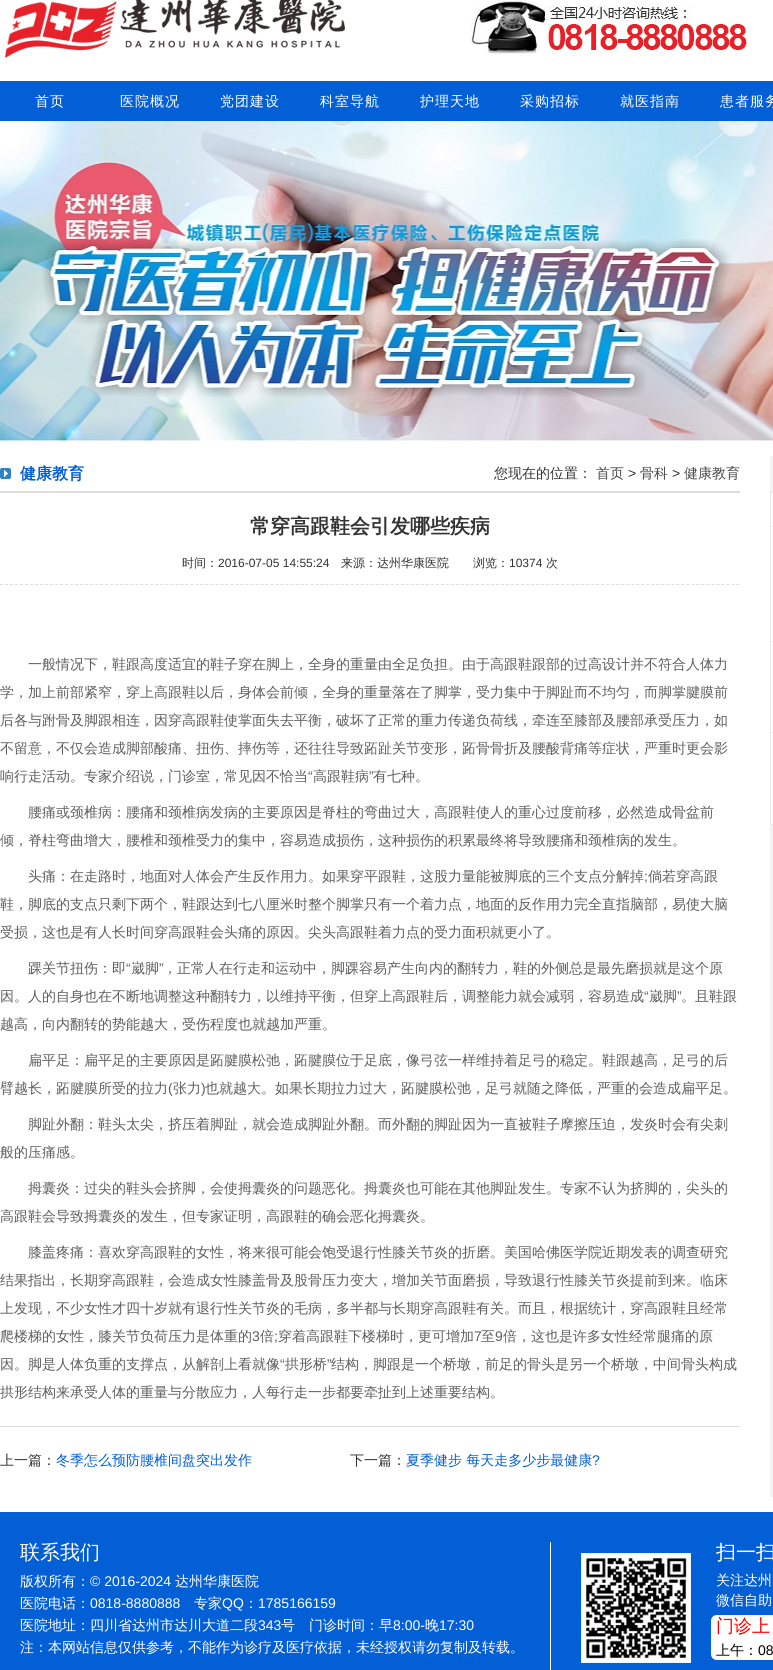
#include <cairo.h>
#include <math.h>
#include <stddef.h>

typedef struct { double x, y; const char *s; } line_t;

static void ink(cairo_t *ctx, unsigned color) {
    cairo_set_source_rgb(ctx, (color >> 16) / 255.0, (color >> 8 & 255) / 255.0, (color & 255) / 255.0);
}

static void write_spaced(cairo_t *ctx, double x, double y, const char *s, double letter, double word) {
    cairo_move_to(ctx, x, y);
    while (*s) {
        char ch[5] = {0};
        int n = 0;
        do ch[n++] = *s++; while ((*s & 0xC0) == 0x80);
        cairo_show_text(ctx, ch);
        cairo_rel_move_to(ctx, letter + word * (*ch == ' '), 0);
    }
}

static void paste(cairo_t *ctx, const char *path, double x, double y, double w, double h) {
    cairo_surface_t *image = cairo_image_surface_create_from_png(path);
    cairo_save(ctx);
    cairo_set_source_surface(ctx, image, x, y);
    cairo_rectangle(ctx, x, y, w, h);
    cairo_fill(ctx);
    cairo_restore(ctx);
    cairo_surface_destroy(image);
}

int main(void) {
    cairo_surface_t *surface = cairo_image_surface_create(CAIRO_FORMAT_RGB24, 773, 1670);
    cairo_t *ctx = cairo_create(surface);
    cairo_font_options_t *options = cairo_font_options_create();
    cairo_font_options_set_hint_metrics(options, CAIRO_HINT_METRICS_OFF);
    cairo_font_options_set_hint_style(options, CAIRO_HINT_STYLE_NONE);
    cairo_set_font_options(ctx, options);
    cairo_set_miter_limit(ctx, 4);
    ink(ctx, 0xFFFFFF);
    cairo_paint(ctx);
    paste(ctx, "media/1.png", 5, 0, 340, 61);
    paste(ctx, "media/2.png", 470, 0, 280, 54);
    ink(ctx, 0x025FD6);
    cairo_rectangle(ctx, 0, 81, 773, 40);
    cairo_fill(ctx);
    cairo_select_font_face(ctx, "WenQuanYi Zen Hei Medium", CAIRO_FONT_SLANT_NORMAL, CAIRO_FONT_WEIGHT_NORMAL);
    cairo_set_font_size(ctx, 14);
    ink(ctx, 0xFFFFFF);
    {
        static const line_t items[] = {
            {35, 106, "首页"},
            {120, 106, "医院概况"},
            {220, 106, "党团建设"},
            {320, 106, "科室导航"},
            {420, 106, "护理天地"},
            {520, 106, "采购招标"},
            {620, 106, "就医指南"},
            {720, 106, "患者服务"},
        };
        for (size_t i = 0; i < sizeof items / sizeof *items; i++) {
            write_spaced(ctx, items[i].x, items[i].y, items[i].s, 1, 0);
        }
    }
    paste(ctx, "media/3.png", 0, 121, 773, 320);
    paste(ctx, "media/4.png", 0, 468, 11, 11);
    ink(ctx, 0xDDDDDD);
    cairo_rectangle(ctx, 0, 491, 740, 2);
    cairo_fill(ctx);
    cairo_select_font_face(ctx, "WenQuanYi Zen Hei", CAIRO_FONT_SLANT_NORMAL, CAIRO_FONT_WEIGHT_BOLD);
    cairo_set_font_size(ctx, 16);
    ink(ctx, 0x035FD5);
    cairo_move_to(ctx, 20, 479);
    cairo_show_text(ctx, "健康教育");
    cairo_select_font_face(ctx, "WenQuanYi Zen Hei Medium", CAIRO_FONT_SLANT_NORMAL, CAIRO_FONT_WEIGHT_NORMAL);
    cairo_set_font_size(ctx, 14);
    ink(ctx, 0x333333);
    cairo_move_to(ctx, 494, 478);
    cairo_show_text(ctx, "您现在的位置：");
    ink(ctx, 0x4B4949);
    cairo_move_to(ctx, 596, 478);
    cairo_show_text(ctx, "首页");
    cairo_select_font_face(ctx, "Liberation Sans", CAIRO_FONT_SLANT_NORMAL, CAIRO_FONT_WEIGHT_NORMAL);
    ink(ctx, 0x333333);
    cairo_move_to(ctx, 628, 478);
    cairo_show_text(ctx, ">");
    cairo_select_font_face(ctx, "WenQuanYi Zen Hei Medium", CAIRO_FONT_SLANT_NORMAL, CAIRO_FONT_WEIGHT_NORMAL);
    ink(ctx, 0x4B4949);
    cairo_move_to(ctx, 640, 478);
    cairo_show_text(ctx, "骨科");
    cairo_select_font_face(ctx, "Liberation Sans", CAIRO_FONT_SLANT_NORMAL, CAIRO_FONT_WEIGHT_NORMAL);
    ink(ctx, 0x333333);
    cairo_move_to(ctx, 672, 478);
    cairo_show_text(ctx, ">");
    cairo_select_font_face(ctx, "WenQuanYi Zen Hei Medium", CAIRO_FONT_SLANT_NORMAL, CAIRO_FONT_WEIGHT_NORMAL);
    ink(ctx, 0x4B4949);
    cairo_move_to(ctx, 684, 478);
    cairo_show_text(ctx, "健康教育");
    cairo_select_font_face(ctx, "WenQuanYi Zen Hei", CAIRO_FONT_SLANT_NORMAL, CAIRO_FONT_WEIGHT_BOLD);
    cairo_set_font_size(ctx, 20);
    ink(ctx, 0x333333);
    cairo_move_to(ctx, 250, 533);
    cairo_show_text(ctx, "常穿高跟鞋会引发哪些疾病");
    cairo_new_path(ctx);
    cairo_move_to(ctx, 0, 584.5);
    cairo_line_to(ctx, 740, 584.5);
    ink(ctx, 0xDEDEDE);
    cairo_set_line_width(ctx, 1);
    cairo_set_dash(ctx, (double[]){3, 2.01}, 2, 0);
    cairo_stroke(ctx);
    cairo_select_font_face(ctx, "WenQuanYi Zen Hei Medium", CAIRO_FONT_SLANT_NORMAL, CAIRO_FONT_WEIGHT_NORMAL);
    cairo_set_font_size(ctx, 12);
    ink(ctx, 0x333333);
    cairo_move_to(ctx, 182, 567);
    cairo_show_text(ctx, "时间：");
    cairo_select_font_face(ctx, "Liberation Sans", CAIRO_FONT_SLANT_NORMAL, CAIRO_FONT_WEIGHT_NORMAL);
    cairo_move_to(ctx, 218, 567);
    cairo_show_text(ctx, "2016-07-05 14:55:24");
    cairo_select_font_face(ctx, "WenQuanYi Zen Hei Medium", CAIRO_FONT_SLANT_NORMAL, CAIRO_FONT_WEIGHT_NORMAL);
    cairo_move_to(ctx, 341, 567);
    cairo_show_text(ctx, "来源：达州华康医院　　浏览：");
    cairo_select_font_face(ctx, "Liberation Sans", CAIRO_FONT_SLANT_NORMAL, CAIRO_FONT_WEIGHT_NORMAL);
    cairo_move_to(ctx, 509, 567);
    cairo_show_text(ctx, "10374");
    cairo_select_font_face(ctx, "WenQuanYi Zen Hei Medium", CAIRO_FONT_SLANT_NORMAL, CAIRO_FONT_WEIGHT_NORMAL);
    cairo_move_to(ctx, 546, 567);
    cairo_show_text(ctx, "次");
    cairo_set_font_size(ctx, 14);
    ink(ctx, 0x5F5D5D);
    {
        static const line_t items[] = {
            {28, 669, "一般情况下，鞋跟高度适宜的鞋子穿在脚上，全身的重量由全足负担。由于高跟鞋跟部的过高设计并不符合人体力"},
            {0, 697, "学，加上前部紧窄，穿上高跟鞋以后，身体会前倾，全身的重量落在了脚掌，受力集中于脚趾而不均匀，而脚掌腱膜前"},
            {0, 725, "后各与跗骨及脚跟相连，因穿高跟鞋使掌面失去平衡，破坏了正常的重力传递负荷线，牵连至膝部及腰部承受压力，如"},
            {0, 753, "不留意，不仅会造成脚部酸痛、扭伤、摔伤等，还往往导致跖趾关节变形，跖骨骨折及腰酸背痛等症状，严重时更会影"},
            {0, 781, "响行走活动。专家介绍说，门诊室，常见因不恰当"},
        };
        for (size_t i = 0; i < sizeof items / sizeof *items; i++) {
            cairo_move_to(ctx, items[i].x, items[i].y);
            cairo_show_text(ctx, items[i].s);
        }
    }
    cairo_select_font_face(ctx, "Liberation Sans", CAIRO_FONT_SLANT_NORMAL, CAIRO_FONT_WEIGHT_NORMAL);
    cairo_move_to(ctx, 308, 781);
    cairo_show_text(ctx, "“");
    cairo_select_font_face(ctx, "WenQuanYi Zen Hei Medium", CAIRO_FONT_SLANT_NORMAL, CAIRO_FONT_WEIGHT_NORMAL);
    cairo_move_to(ctx, 313, 781);
    cairo_show_text(ctx, "高跟鞋病");
    cairo_select_font_face(ctx, "Liberation Sans", CAIRO_FONT_SLANT_NORMAL, CAIRO_FONT_WEIGHT_NORMAL);
    cairo_move_to(ctx, 369, 781);
    cairo_show_text(ctx, "”");
    cairo_select_font_face(ctx, "WenQuanYi Zen Hei Medium", CAIRO_FONT_SLANT_NORMAL, CAIRO_FONT_WEIGHT_NORMAL);
    {
        static const line_t items[] = {
            {373, 781, "有七种。"},
            {28, 817, "腰痛或颈椎病：腰痛和颈椎病发病的主要原因是脊柱的弯曲过大，高跟鞋使人的重心过度前移，必然造成骨盆前"},
            {0, 845, "倾，脊柱弯曲增大，腰椎和颈椎受力的集中，容易造成损伤，这种损伤的积累最终将导致腰痛和颈椎病的发生。"},
            {28, 881, "头痛：在走路时，地面对人体会产生反作用力。如果穿平跟鞋，这股力量能被脚底的三个支点分解掉"},
        };
        for (size_t i = 0; i < sizeof items / sizeof *items; i++) {
            cairo_move_to(ctx, items[i].x, items[i].y);
            cairo_show_text(ctx, items[i].s);
        }
    }
    cairo_select_font_face(ctx, "Liberation Sans", CAIRO_FONT_SLANT_NORMAL, CAIRO_FONT_WEIGHT_NORMAL);
    cairo_move_to(ctx, 644, 881);
    cairo_show_text(ctx, ";");
    cairo_select_font_face(ctx, "WenQuanYi Zen Hei Medium", CAIRO_FONT_SLANT_NORMAL, CAIRO_FONT_WEIGHT_NORMAL);
    {
        static const line_t items[] = {
            {648, 881, "倘若穿高跟"},
            {0, 909, "鞋，脚底的支点只剩下两个，鞋跟达到七八厘米时整个脚掌只有一个着力点，地面的反作用力完全直指脑部，易使大脑"},
            {0, 937, "受损，这也是有人长时间穿高跟鞋会头痛的原因。尖头高跟鞋着力点的受力面积就更小了。"},
            {28, 973, "踝关节扭伤：即"},
        };
        for (size_t i = 0; i < sizeof items / sizeof *items; i++) {
            cairo_move_to(ctx, items[i].x, items[i].y);
            cairo_show_text(ctx, items[i].s);
        }
    }
    cairo_select_font_face(ctx, "Liberation Sans", CAIRO_FONT_SLANT_NORMAL, CAIRO_FONT_WEIGHT_NORMAL);
    cairo_move_to(ctx, 126, 973);
    cairo_show_text(ctx, "“");
    cairo_select_font_face(ctx, "WenQuanYi Zen Hei Medium", CAIRO_FONT_SLANT_NORMAL, CAIRO_FONT_WEIGHT_NORMAL);
    cairo_move_to(ctx, 131, 973);
    cairo_show_text(ctx, "崴脚");
    cairo_select_font_face(ctx, "Liberation Sans", CAIRO_FONT_SLANT_NORMAL, CAIRO_FONT_WEIGHT_NORMAL);
    cairo_move_to(ctx, 159, 973);
    cairo_show_text(ctx, "”");
    cairo_select_font_face(ctx, "WenQuanYi Zen Hei Medium", CAIRO_FONT_SLANT_NORMAL, CAIRO_FONT_WEIGHT_NORMAL);
    cairo_move_to(ctx, 163, 973);
    cairo_show_text(ctx, "，正常人在行走和运动中，脚踝容易产生向内的翻转力，鞋的外侧总是最先磨损就是这个原");
    cairo_move_to(ctx, 0, 1001);
    cairo_show_text(ctx, "因。人的自身也在不断地调整这种翻转力，以维持平衡，但穿上高跟鞋后，调整能力就会减弱，容易造成");
    cairo_select_font_face(ctx, "Liberation Sans", CAIRO_FONT_SLANT_NORMAL, CAIRO_FONT_WEIGHT_NORMAL);
    cairo_move_to(ctx, 644, 1001);
    cairo_show_text(ctx, "“");
    cairo_select_font_face(ctx, "WenQuanYi Zen Hei Medium", CAIRO_FONT_SLANT_NORMAL, CAIRO_FONT_WEIGHT_NORMAL);
    cairo_move_to(ctx, 649, 1001);
    cairo_show_text(ctx, "崴脚");
    cairo_select_font_face(ctx, "Liberation Sans", CAIRO_FONT_SLANT_NORMAL, CAIRO_FONT_WEIGHT_NORMAL);
    cairo_move_to(ctx, 677, 1001);
    cairo_show_text(ctx, "”");
    cairo_select_font_face(ctx, "WenQuanYi Zen Hei Medium", CAIRO_FONT_SLANT_NORMAL, CAIRO_FONT_WEIGHT_NORMAL);
    {
        static const line_t items[] = {
            {681, 1001, "。且鞋跟"},
            {0, 1029, "越高，向内翻转的势能越大，受伤程度也就越加严重。"},
            {28, 1065, "扁平足：扁平足的主要原因是跖腱膜松弛，跖腱膜位于足底，像弓弦一样维持着足弓的稳定。鞋跟越高，足弓的后"},
            {0, 1093, "臂越长，跖腱膜所受的拉力"},
        };
        for (size_t i = 0; i < sizeof items / sizeof *items; i++) {
            cairo_move_to(ctx, items[i].x, items[i].y);
            cairo_show_text(ctx, items[i].s);
        }
    }
    cairo_select_font_face(ctx, "Liberation Sans", CAIRO_FONT_SLANT_NORMAL, CAIRO_FONT_WEIGHT_NORMAL);
    cairo_move_to(ctx, 168, 1093);
    cairo_show_text(ctx, "(");
    cairo_select_font_face(ctx, "WenQuanYi Zen Hei Medium", CAIRO_FONT_SLANT_NORMAL, CAIRO_FONT_WEIGHT_NORMAL);
    cairo_move_to(ctx, 173, 1093);
    cairo_show_text(ctx, "张力");
    cairo_select_font_face(ctx, "Liberation Sans", CAIRO_FONT_SLANT_NORMAL, CAIRO_FONT_WEIGHT_NORMAL);
    cairo_move_to(ctx, 201, 1093);
    cairo_show_text(ctx, ")");
    cairo_select_font_face(ctx, "WenQuanYi Zen Hei Medium", CAIRO_FONT_SLANT_NORMAL, CAIRO_FONT_WEIGHT_NORMAL);
    {
        static const line_t items[] = {
            {205, 1093, "也就越大。如果长期拉力过大，跖腱膜松弛，足弓就随之降低，严重的会造成扁平足。"},
            {28, 1129, "脚趾外翻：鞋头太尖，挤压着脚趾，就会造成脚趾外翻。而外翻的脚趾因为一直被鞋子摩擦压迫，发炎时会有尖刺"},
            {0, 1157, "般的压痛感。"},
            {28, 1193, "拇囊炎：过尖的鞋头会挤脚，会使拇囊炎的问题恶化。拇囊炎也可能在其他脚趾发生。专家不认为挤脚的，尖头的"},
            {0, 1221, "高跟鞋会导致拇囊炎的发生，但专家证明，高跟鞋的确会恶化拇囊炎。"},
            {28, 1257, "膝盖疼痛：喜欢穿高跟鞋的女性，将来很可能会饱受退行性膝关节炎的折磨。美国哈佛医学院近期发表的调查研究"},
            {0, 1285, "结果指出，长期穿高跟鞋，会造成女性膝盖骨及股骨压力变大，增加关节面磨损，导致退行性膝关节炎提前到来。临床"},
            {0, 1313, "上发现，不少女性才四十岁就有退行性关节炎的毛病，多半都与长期穿高跟鞋有关。而且，根据统计，穿高跟鞋且经常"},
            {0, 1341, "爬楼梯的女性，膝关节负荷压力是体重的"},
        };
        for (size_t i = 0; i < sizeof items / sizeof *items; i++) {
            cairo_move_to(ctx, items[i].x, items[i].y);
            cairo_show_text(ctx, items[i].s);
        }
    }
    cairo_select_font_face(ctx, "Liberation Sans", CAIRO_FONT_SLANT_NORMAL, CAIRO_FONT_WEIGHT_NORMAL);
    cairo_move_to(ctx, 252, 1341);
    cairo_show_text(ctx, "3");
    cairo_select_font_face(ctx, "WenQuanYi Zen Hei Medium", CAIRO_FONT_SLANT_NORMAL, CAIRO_FONT_WEIGHT_NORMAL);
    cairo_move_to(ctx, 260, 1341);
    cairo_show_text(ctx, "倍");
    cairo_select_font_face(ctx, "Liberation Sans", CAIRO_FONT_SLANT_NORMAL, CAIRO_FONT_WEIGHT_NORMAL);
    cairo_move_to(ctx, 274, 1341);
    cairo_show_text(ctx, ";");
    cairo_select_font_face(ctx, "WenQuanYi Zen Hei Medium", CAIRO_FONT_SLANT_NORMAL, CAIRO_FONT_WEIGHT_NORMAL);
    cairo_move_to(ctx, 278, 1341);
    cairo_show_text(ctx, "穿着高跟鞋下楼梯时，更可增加");
    cairo_select_font_face(ctx, "Liberation Sans", CAIRO_FONT_SLANT_NORMAL, CAIRO_FONT_WEIGHT_NORMAL);
    cairo_move_to(ctx, 474, 1341);
    cairo_show_text(ctx, "7");
    cairo_select_font_face(ctx, "WenQuanYi Zen Hei Medium", CAIRO_FONT_SLANT_NORMAL, CAIRO_FONT_WEIGHT_NORMAL);
    cairo_move_to(ctx, 481, 1341);
    cairo_show_text(ctx, "至");
    cairo_select_font_face(ctx, "Liberation Sans", CAIRO_FONT_SLANT_NORMAL, CAIRO_FONT_WEIGHT_NORMAL);
    cairo_move_to(ctx, 495, 1341);
    cairo_show_text(ctx, "9");
    cairo_select_font_face(ctx, "WenQuanYi Zen Hei Medium", CAIRO_FONT_SLANT_NORMAL, CAIRO_FONT_WEIGHT_NORMAL);
    cairo_move_to(ctx, 503, 1341);
    cairo_show_text(ctx, "倍，这也是许多女性经常腿痛的原");
    cairo_move_to(ctx, 0, 1369);
    cairo_show_text(ctx, "因。脚是人体负重的支撑点，从解剖上看就像");
    cairo_select_font_face(ctx, "Liberation Sans", CAIRO_FONT_SLANT_NORMAL, CAIRO_FONT_WEIGHT_NORMAL);
    cairo_move_to(ctx, 280, 1369);
    cairo_show_text(ctx, "“");
    cairo_select_font_face(ctx, "WenQuanYi Zen Hei Medium", CAIRO_FONT_SLANT_NORMAL, CAIRO_FONT_WEIGHT_NORMAL);
    cairo_move_to(ctx, 285, 1369);
    cairo_show_text(ctx, "拱形桥");
    cairo_select_font_face(ctx, "Liberation Sans", CAIRO_FONT_SLANT_NORMAL, CAIRO_FONT_WEIGHT_NORMAL);
    cairo_move_to(ctx, 327, 1369);
    cairo_show_text(ctx, "”");
    cairo_select_font_face(ctx, "WenQuanYi Zen Hei Medium", CAIRO_FONT_SLANT_NORMAL, CAIRO_FONT_WEIGHT_NORMAL);
    cairo_move_to(ctx, 331, 1369);
    cairo_show_text(ctx, "结构，脚跟是一个桥墩，前足的骨头是另一个桥墩，中间骨头构成");
    cairo_move_to(ctx, 0, 1397);
    cairo_show_text(ctx, "拱形结构来承受人体的重量与分散应力，人每行走一步都要牵扯到上述重要结构。");
    ink(ctx, 0xDBDBDB);
    cairo_rectangle(ctx, 0, 1426, 740, 1);
    cairo_fill(ctx);
    ink(ctx, 0x333333);
    cairo_move_to(ctx, 0, 1465);
    cairo_show_text(ctx, "上一篇：");
    ink(ctx, 0x035FD5);
    cairo_move_to(ctx, 56, 1465);
    cairo_show_text(ctx, "冬季怎么预防腰椎间盘突出发作");
    ink(ctx, 0x333333);
    cairo_move_to(ctx, 350, 1465);
    cairo_show_text(ctx, "下一篇：");
    ink(ctx, 0x035FD5);
    cairo_move_to(ctx, 406, 1465);
    cairo_show_text(ctx, "夏季健步 每天走多少步最健康");
    cairo_select_font_face(ctx, "Liberation Sans", CAIRO_FONT_SLANT_NORMAL, CAIRO_FONT_WEIGHT_NORMAL);
    cairo_move_to(ctx, 592, 1465);
    cairo_show_text(ctx, "?");
    ink(ctx, 0xF2F2F2);
    cairo_rectangle(ctx, 770, 456, 3, 1041);
    cairo_fill(ctx);
    ink(ctx, 0xFFFFFF);
    cairo_rectangle(ctx, 770.5, 492.5, 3, 332);
    cairo_fill_preserve(ctx);
    ink(ctx, 0xE9E9E9);
    cairo_set_dash(ctx, NULL, 0, 0);
    cairo_stroke(ctx);
    cairo_new_path(ctx);
    cairo_move_to(ctx, 772, 526.5);
    cairo_line_to(ctx, 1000, 526.5);
    cairo_set_dash(ctx, (double[]){3, 2}, 2, 0);
    cairo_stroke(ctx);
    cairo_new_path(ctx);
    cairo_move_to(ctx, 772, 641.5);
    cairo_line_to(ctx, 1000, 641.5);
    cairo_stroke(ctx);
    cairo_new_path(ctx);
    cairo_move_to(ctx, 772, 732.5);
    cairo_line_to(ctx, 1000, 732.5);
    cairo_stroke(ctx);
    ink(ctx, 0x025FD6);
    cairo_rectangle(ctx, 0, 1512, 773, 158);
    cairo_fill(ctx);
    ink(ctx, 0xFFFFFF);
    cairo_rectangle(ctx, 550, 1542, 1, 128);
    cairo_fill(ctx);
    cairo_select_font_face(ctx, "WenQuanYi Zen Hei Medium", CAIRO_FONT_SLANT_NORMAL, CAIRO_FONT_WEIGHT_NORMAL);
    cairo_set_font_size(ctx, 20);
    cairo_move_to(ctx, 20, 1559);
    cairo_show_text(ctx, "联系我们");
    cairo_set_font_size(ctx, 14);
    cairo_move_to(ctx, 20, 1586);
    cairo_show_text(ctx, "版权所有：");
    cairo_select_font_face(ctx, "Liberation Sans", CAIRO_FONT_SLANT_NORMAL, CAIRO_FONT_WEIGHT_NORMAL);
    cairo_move_to(ctx, 90, 1586);
    cairo_show_text(ctx, "© 2016-2024");
    cairo_select_font_face(ctx, "WenQuanYi Zen Hei Medium", CAIRO_FONT_SLANT_NORMAL, CAIRO_FONT_WEIGHT_NORMAL);
    cairo_move_to(ctx, 175, 1586);
    cairo_show_text(ctx, "达州华康医院");
    cairo_move_to(ctx, 20, 1608);
    cairo_show_text(ctx, "医院电话：");
    cairo_select_font_face(ctx, "Liberation Sans", CAIRO_FONT_SLANT_NORMAL, CAIRO_FONT_WEIGHT_NORMAL);
    cairo_move_to(ctx, 90, 1608);
    cairo_show_text(ctx, "0818-8880888");
    cairo_select_font_face(ctx, "WenQuanYi Zen Hei Medium", CAIRO_FONT_SLANT_NORMAL, CAIRO_FONT_WEIGHT_NORMAL);
    cairo_move_to(ctx, 194, 1608);
    cairo_show_text(ctx, "专家");
    cairo_select_font_face(ctx, "Liberation Sans", CAIRO_FONT_SLANT_NORMAL, CAIRO_FONT_WEIGHT_NORMAL);
    cairo_move_to(ctx, 222, 1608);
    cairo_show_text(ctx, "QQ");
    cairo_select_font_face(ctx, "WenQuanYi Zen Hei Medium", CAIRO_FONT_SLANT_NORMAL, CAIRO_FONT_WEIGHT_NORMAL);
    cairo_move_to(ctx, 244, 1608);
    cairo_show_text(ctx, "：");
    cairo_select_font_face(ctx, "Liberation Sans", CAIRO_FONT_SLANT_NORMAL, CAIRO_FONT_WEIGHT_NORMAL);
    cairo_move_to(ctx, 258, 1608);
    cairo_show_text(ctx, "1785166159");
    cairo_select_font_face(ctx, "WenQuanYi Zen Hei Medium", CAIRO_FONT_SLANT_NORMAL, CAIRO_FONT_WEIGHT_NORMAL);
    cairo_move_to(ctx, 20, 1630);
    cairo_show_text(ctx, "医院地址：四川省达州市达川大道二段");
    cairo_select_font_face(ctx, "Liberation Sans", CAIRO_FONT_SLANT_NORMAL, CAIRO_FONT_WEIGHT_NORMAL);
    cairo_move_to(ctx, 258, 1630);
    cairo_show_text(ctx, "343");
    cairo_select_font_face(ctx, "WenQuanYi Zen Hei Medium", CAIRO_FONT_SLANT_NORMAL, CAIRO_FONT_WEIGHT_NORMAL);
    cairo_move_to(ctx, 281, 1630);
    cairo_show_text(ctx, "号　门诊时间：早");
    cairo_select_font_face(ctx, "Liberation Sans", CAIRO_FONT_SLANT_NORMAL, CAIRO_FONT_WEIGHT_NORMAL);
    cairo_move_to(ctx, 393, 1630);
    cairo_show_text(ctx, "8:00-");
    cairo_select_font_face(ctx, "WenQuanYi Zen Hei Medium", CAIRO_FONT_SLANT_NORMAL, CAIRO_FONT_WEIGHT_NORMAL);
    cairo_move_to(ctx, 425, 1630);
    cairo_show_text(ctx, "晚");
    cairo_select_font_face(ctx, "Liberation Sans", CAIRO_FONT_SLANT_NORMAL, CAIRO_FONT_WEIGHT_NORMAL);
    cairo_move_to(ctx, 439, 1630);
    cairo_show_text(ctx, "17:30");
    cairo_select_font_face(ctx, "WenQuanYi Zen Hei Medium", CAIRO_FONT_SLANT_NORMAL, CAIRO_FONT_WEIGHT_NORMAL);
    cairo_move_to(ctx, 20, 1652);
    cairo_show_text(ctx, "注：本网站信息仅供参考，不能作为诊疗及医疗依据，未经授权请勿复制及转载。");
    paste(ctx, "media/5.png", 581, 1552, 110, 111);
    cairo_set_font_size(ctx, 20);
    cairo_move_to(ctx, 716, 1559);
    cairo_show_text(ctx, "扫一扫");
    cairo_set_font_size(ctx, 14);
    cairo_move_to(ctx, 716, 1585);
    cairo_show_text(ctx, "关注达州");
    cairo_move_to(ctx, 716, 1605);
    cairo_show_text(ctx, "微信自助");
    cairo_new_path(ctx);
    cairo_move_to(ctx, 717, 1615);
    cairo_line_to(ctx, 773, 1615);
    cairo_line_to(ctx, 773, 1660);
    cairo_line_to(ctx, 717, 1660);
    cairo_curve_to(ctx, 713.5, 1660, 711, 1657.5, 711, 1654);
    cairo_line_to(ctx, 711, 1621);
    cairo_curve_to(ctx, 711, 1617.5, 713.5, 1615, 717, 1615);
    cairo_close_path(ctx);
    cairo_fill(ctx);
    cairo_set_font_size(ctx, 18);
    ink(ctx, 0xFF0000);
    cairo_move_to(ctx, 716, 1632);
    cairo_show_text(ctx, "门诊上");
    cairo_set_font_size(ctx, 14);
    ink(ctx, 0x000000);
    cairo_move_to(ctx, 716, 1655);
    cairo_show_text(ctx, "上午：");
    cairo_select_font_face(ctx, "Liberation Sans", CAIRO_FONT_SLANT_NORMAL, CAIRO_FONT_WEIGHT_NORMAL);
    cairo_move_to(ctx, 758, 1655);
    cairo_show_text(ctx, "08");
    cairo_surface_write_to_png(surface, "image.png");
    cairo_font_options_destroy(options);
    cairo_destroy(ctx);
    cairo_surface_destroy(surface);
    return 0;
}
